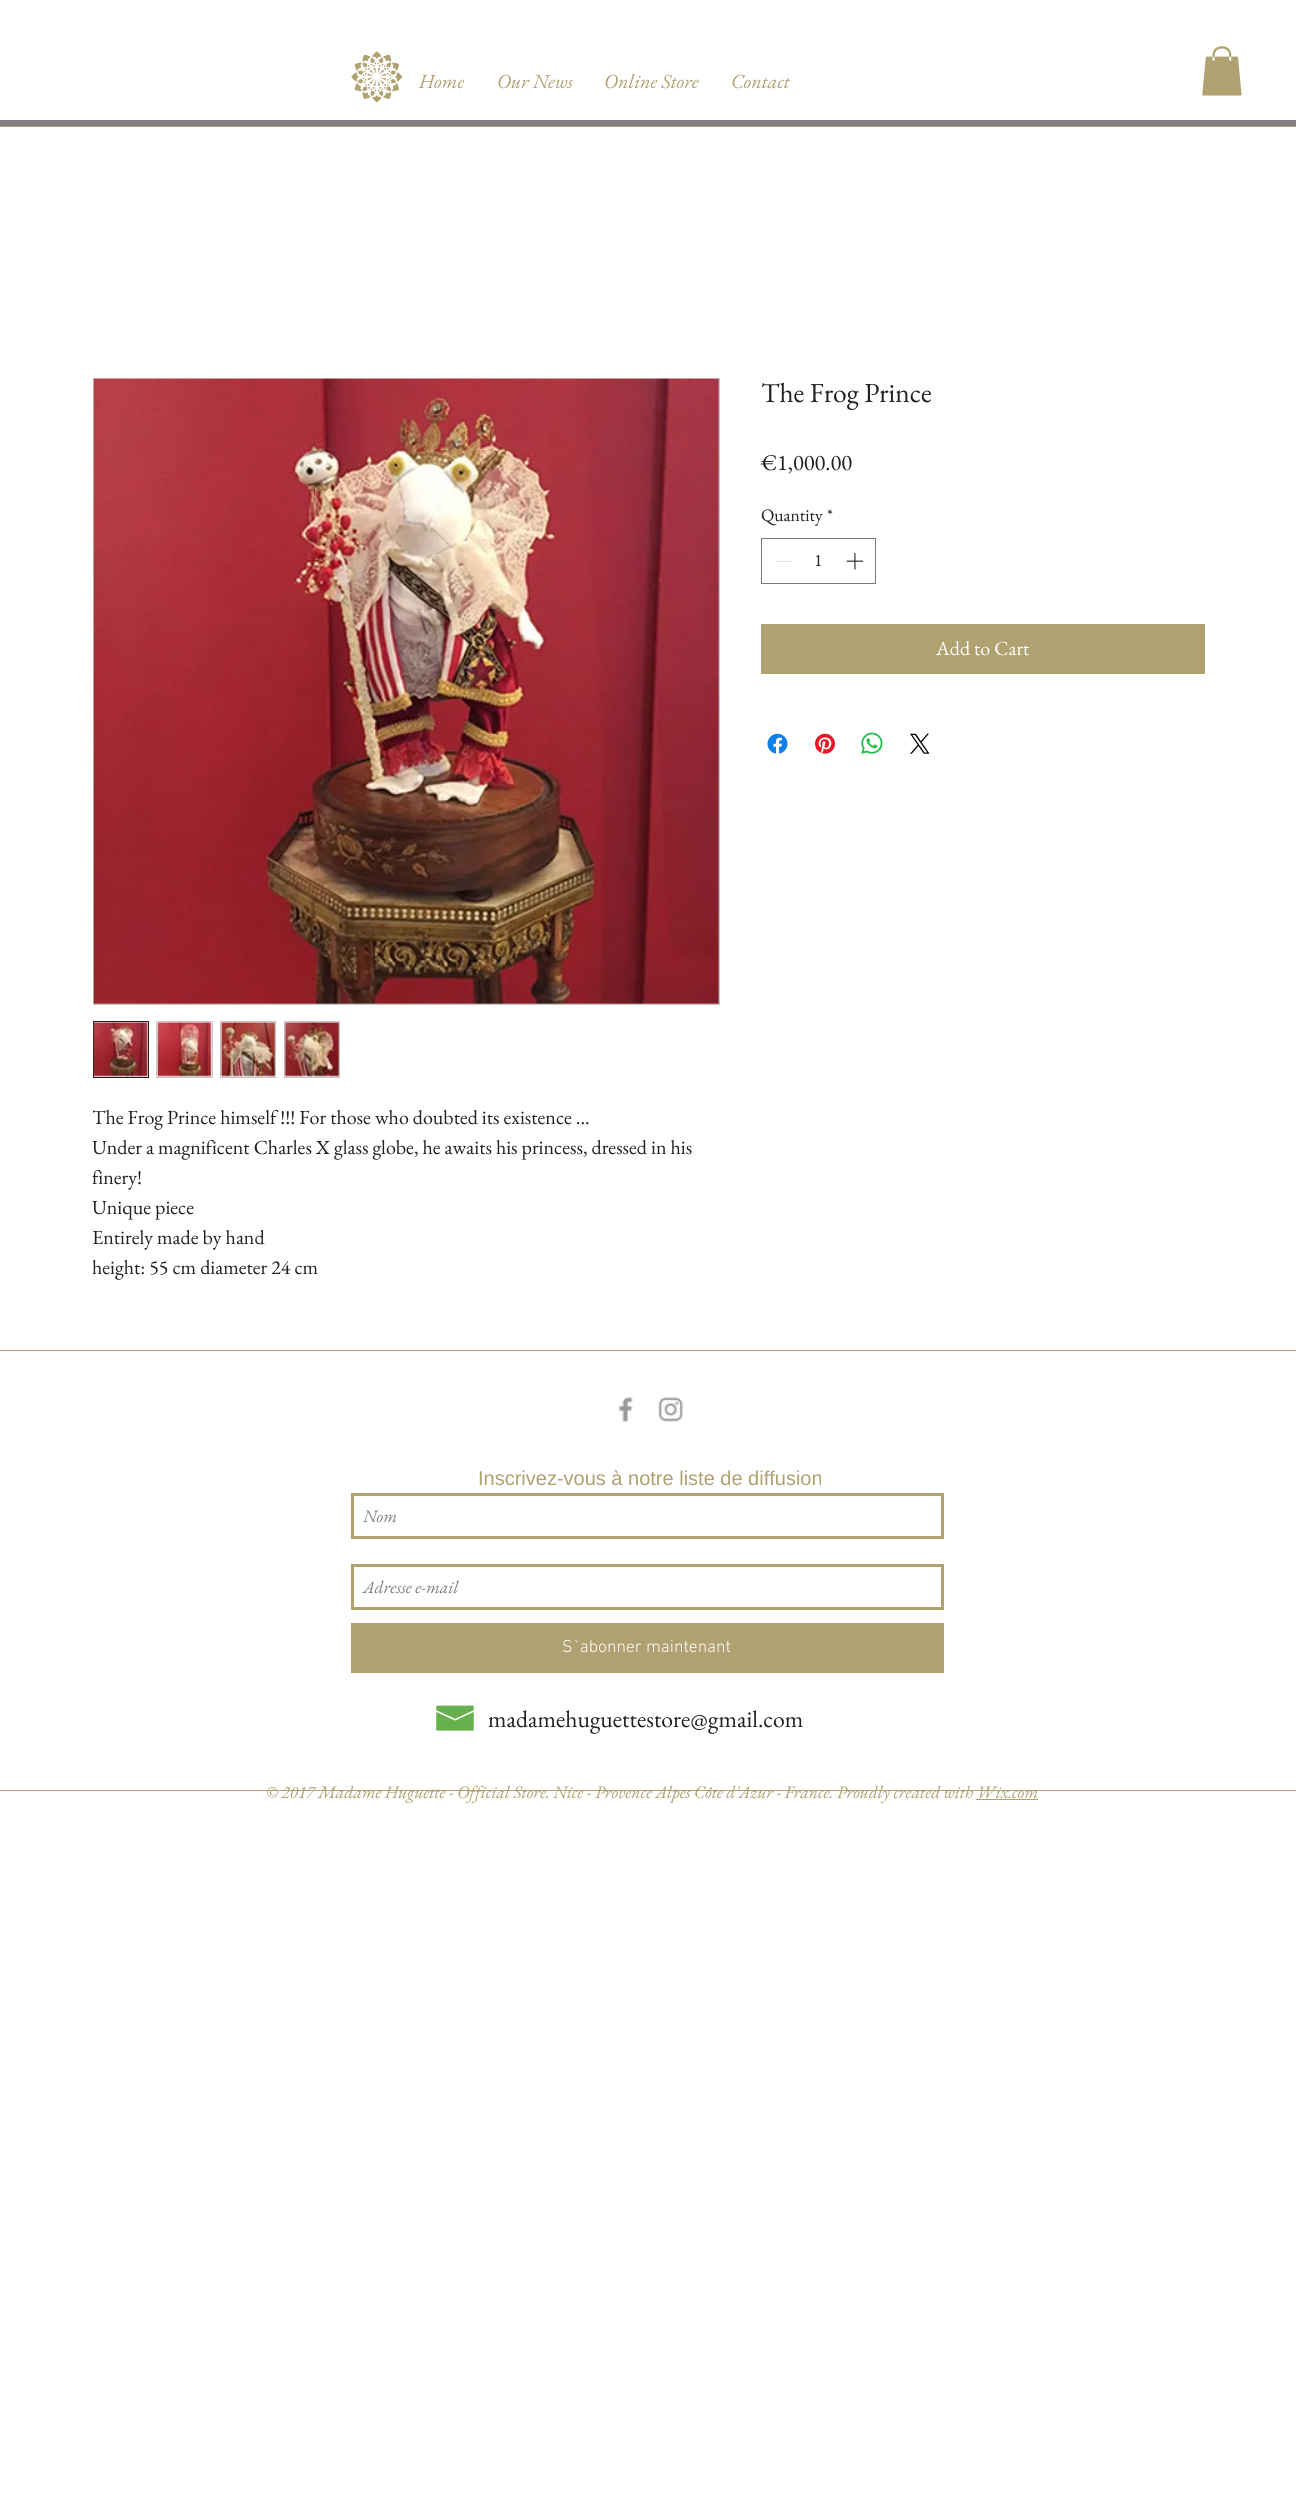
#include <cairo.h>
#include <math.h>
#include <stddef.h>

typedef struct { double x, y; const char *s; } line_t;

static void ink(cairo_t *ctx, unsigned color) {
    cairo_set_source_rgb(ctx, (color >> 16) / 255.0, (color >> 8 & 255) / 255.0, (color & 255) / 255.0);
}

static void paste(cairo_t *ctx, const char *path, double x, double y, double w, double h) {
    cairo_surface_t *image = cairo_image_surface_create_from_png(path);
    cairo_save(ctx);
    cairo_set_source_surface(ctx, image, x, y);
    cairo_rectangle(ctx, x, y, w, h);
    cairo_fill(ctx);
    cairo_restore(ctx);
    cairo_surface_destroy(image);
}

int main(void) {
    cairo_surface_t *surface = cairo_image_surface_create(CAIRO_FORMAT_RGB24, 1296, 2502);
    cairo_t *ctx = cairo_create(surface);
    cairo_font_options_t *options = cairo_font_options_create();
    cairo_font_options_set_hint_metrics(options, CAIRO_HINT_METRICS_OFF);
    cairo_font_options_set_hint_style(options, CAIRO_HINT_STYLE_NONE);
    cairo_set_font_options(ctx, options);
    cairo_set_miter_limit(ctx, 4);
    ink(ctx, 0xFFFFFF);
    cairo_paint(ctx);
    paste(ctx, "media/1.png", 351, 51, 52, 52);
    cairo_select_font_face(ctx, "EB Garamond", CAIRO_FONT_SLANT_ITALIC, CAIRO_FONT_WEIGHT_NORMAL);
    cairo_set_font_size(ctx, 20);
    ink(ctx, 0xB0A171);
    {
        static const line_t items[] = {
            {419, 88, "Home"},
            {497, 88, "Our News"},
            {604, 88, "Online Store"},
            {731, 88, "Contact"},
        };
        for (size_t i = 0; i < sizeof items / sizeof *items; i++) {
            cairo_move_to(ctx, items[i].x, items[i].y);
            cairo_show_text(ctx, items[i].s);
        }
    }
    paste(ctx, "media/2.png", 1202, 46, 40, 50);
    ink(ctx, 0x807E7E);
    cairo_rectangle(ctx, 0, 120, 1296, 6);
    cairo_fill(ctx);
    ink(ctx, 0xB0A171);
    cairo_rectangle(ctx, 0, 126, 1296, 1);
    cairo_fill(ctx);
    cairo_select_font_face(ctx, "EB Garamond", CAIRO_FONT_SLANT_NORMAL, CAIRO_FONT_WEIGHT_NORMAL);
    cairo_set_font_size(ctx, 27.5);
    ink(ctx, 0x212020);
    cairo_move_to(ctx, 761, 402);
    cairo_show_text(ctx, "The Frog Prince");
    cairo_set_font_size(ctx, 22.5);
    cairo_move_to(ctx, 761, 470);
    cairo_show_text(ctx, "€1,000.00");
    cairo_set_font_size(ctx, 17.5);
    cairo_move_to(ctx, 761, 521);
    cairo_show_text(ctx, "Quantity");
    cairo_move_to(ctx, 827, 521);
    cairo_show_text(ctx, "*");
    cairo_rectangle(ctx, 761.5, 538.5, 114, 45);
    ink(ctx, 0x7A7979);
    cairo_set_line_width(ctx, 1);
    cairo_stroke(ctx);
    ink(ctx, 0xE3E3E3);
    cairo_rectangle(ctx, 776, 561, 16, 1);
    cairo_fill(ctx);
    ink(ctx, 0x212020);
    cairo_move_to(ctx, 814, 566);
    cairo_show_text(ctx, "1");
    paste(ctx, "media/3.png", 846, 553, 18, 17);
    ink(ctx, 0xB0A171);
    cairo_rectangle(ctx, 761, 624, 444, 50);
    cairo_fill(ctx);
    cairo_set_font_size(ctx, 20);
    ink(ctx, 0xFFFFFF);
    cairo_move_to(ctx, 936, 655);
    cairo_show_text(ctx, "Add to Cart");
    paste(ctx, "media/4.png", 767, 733, 21, 21);
    paste(ctx, "media/5.png", 815, 733, 20, 21);
    paste(ctx, "media/6.png", 861, 732, 22, 22);
    paste(ctx, "media/7.png", 910, 733, 20, 21);
    cairo_rectangle(ctx, 93.5, 378.5, 626, 626);
    ink(ctx, 0xC7C5C5);
    cairo_stroke(ctx);
    paste(ctx, "media/8.png", 93, 378, 626, 626);
    cairo_rectangle(ctx, 93.5, 1021.5, 55, 56);
    ink(ctx, 0x212020);
    cairo_stroke(ctx);
    paste(ctx, "media/9.png", 93, 1022, 55, 55);
    cairo_rectangle(ctx, 156.5, 1021.5, 56, 56);
    ink(ctx, 0xC7C5C5);
    cairo_stroke(ctx);
    paste(ctx, "media/10.png", 157, 1022, 55, 55);
    cairo_rectangle(ctx, 220.5, 1021.5, 55, 56);
    cairo_stroke(ctx);
    paste(ctx, "media/11.png", 220, 1022, 56, 55);
    cairo_rectangle(ctx, 284.5, 1021.5, 55, 56);
    cairo_stroke(ctx);
    paste(ctx, "media/12.png", 284, 1022, 55, 55);
    cairo_save(ctx);
    cairo_rectangle(ctx, 93, 1103, 625, 180);
    cairo_clip(ctx);
    ink(ctx, 0x212020);
    cairo_move_to(ctx, 92, 1124);
    cairo_show_text(ctx, "The Frog Prince himself !!! For those who doubted its existence ...");
    cairo_restore(ctx);
    ink(ctx, 0x212020);
    {
        static const line_t items[] = {
            {92, 1154, "Under a magnificent Charles X glass globe, he awaits his princess, dressed in his"},
            {92, 1184, "finery!"},
            {92, 1214, "Unique piece"},
            {92, 1244, "Entirely made by hand"},
        };
        for (size_t i = 0; i < sizeof items / sizeof *items; i++) {
            cairo_move_to(ctx, items[i].x, items[i].y);
            cairo_show_text(ctx, items[i].s);
        }
    }
    cairo_save(ctx);
    cairo_rectangle(ctx, 93, 1103, 625, 180);
    cairo_clip(ctx);
    cairo_move_to(ctx, 92, 1274);
    cairo_show_text(ctx, "height: 55 cm diameter 24 cm");
    cairo_restore(ctx);
    ink(ctx, 0xB0A171);
    cairo_rectangle(ctx, 0, 1350, 1296, 1);
    cairo_fill(ctx);
    cairo_rectangle(ctx, 0, 1790, 1296, 1);
    cairo_fill(ctx);
    paste(ctx, "media/13.png", 618, 1397, 15, 25);
    paste(ctx, "media/14.png", 658, 1397, 25, 25);
    cairo_select_font_face(ctx, "Liberation Sans", CAIRO_FONT_SLANT_NORMAL, CAIRO_FONT_WEIGHT_NORMAL);
    cairo_move_to(ctx, 478, 1485);
    cairo_show_text(ctx, "Inscrivez-vous à notre liste de diffusion");
    cairo_rectangle(ctx, 352.5, 1494.5, 590, 43);
    cairo_set_line_width(ctx, 3);
    cairo_stroke(ctx);
    cairo_select_font_face(ctx, "EB Garamond", CAIRO_FONT_SLANT_ITALIC, CAIRO_FONT_WEIGHT_NORMAL);
    cairo_set_font_size(ctx, 17.5);
    ink(ctx, 0x807E7E);
    cairo_move_to(ctx, 363, 1522);
    cairo_show_text(ctx, "Nom");
    cairo_rectangle(ctx, 352.5, 1565.5, 590, 43);
    ink(ctx, 0xB0A171);
    cairo_stroke(ctx);
    ink(ctx, 0x807E7E);
    cairo_move_to(ctx, 363, 1593);
    cairo_show_text(ctx, "Adresse e-mail");
    ink(ctx, 0xB0A171);
    cairo_rectangle(ctx, 351, 1623, 593, 50);
    cairo_fill(ctx);
    cairo_select_font_face(ctx, "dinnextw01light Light", CAIRO_FONT_SLANT_NORMAL, CAIRO_FONT_WEIGHT_NORMAL);
    ink(ctx, 0xFFFFFF);
    cairo_move_to(ctx, 562, 1652);
    cairo_show_text(ctx, "S`abonner maintenant");
    paste(ctx, "media/15.png", 436, 1705, 38, 26);
    cairo_select_font_face(ctx, "EB Garamond", CAIRO_FONT_SLANT_NORMAL, CAIRO_FONT_WEIGHT_NORMAL);
    cairo_set_font_size(ctx, 23.75);
    ink(ctx, 0x212020);
    cairo_move_to(ctx, 488, 1727);
    cairo_show_text(ctx, "madamehuguettestore@gmail.com");
    cairo_select_font_face(ctx, "EB Garamond", CAIRO_FONT_SLANT_ITALIC, CAIRO_FONT_WEIGHT_NORMAL);
    cairo_set_font_size(ctx, 17.5);
    ink(ctx, 0xB0A171);
    cairo_move_to(ctx, 266, 1798);
    cairo_show_text(ctx, "© 2017 Madame Huguette - Official Store. Nice - Provence Alpes Côte d'Azur - France. Proudly created with Wix.com");
    cairo_rectangle(ctx, 976, 1799, 62, 1);
    cairo_fill(ctx);
    cairo_surface_write_to_png(surface, "image.png");
    cairo_font_options_destroy(options);
    cairo_destroy(ctx);
    cairo_surface_destroy(surface);
    return 0;
}
